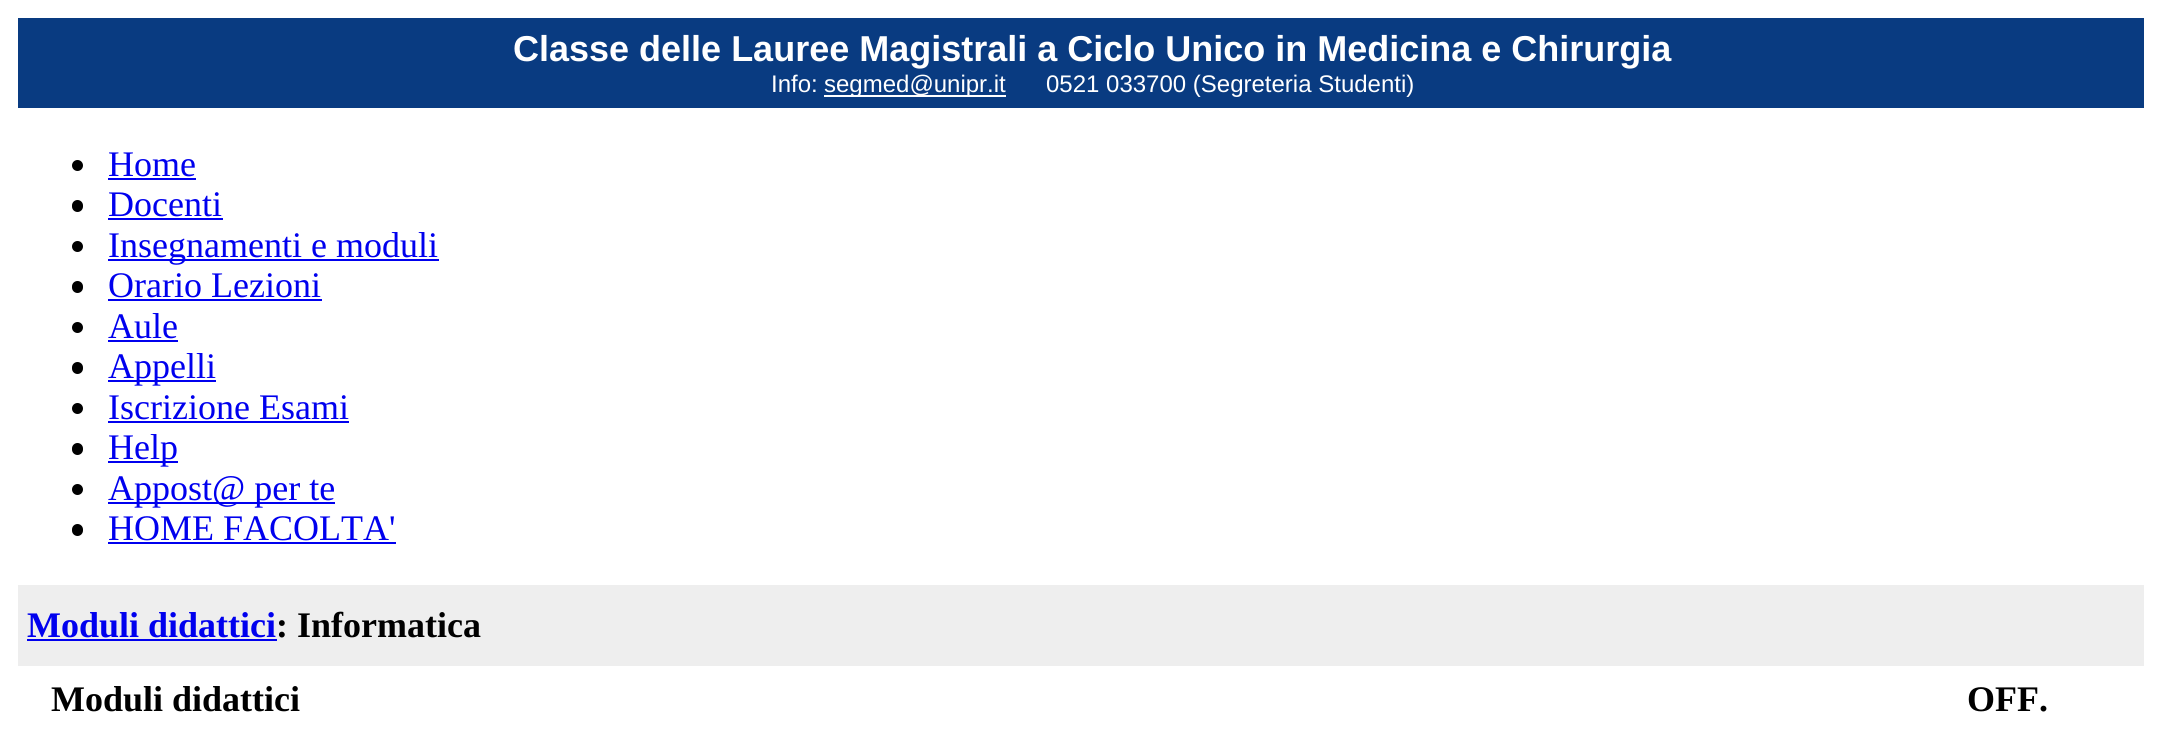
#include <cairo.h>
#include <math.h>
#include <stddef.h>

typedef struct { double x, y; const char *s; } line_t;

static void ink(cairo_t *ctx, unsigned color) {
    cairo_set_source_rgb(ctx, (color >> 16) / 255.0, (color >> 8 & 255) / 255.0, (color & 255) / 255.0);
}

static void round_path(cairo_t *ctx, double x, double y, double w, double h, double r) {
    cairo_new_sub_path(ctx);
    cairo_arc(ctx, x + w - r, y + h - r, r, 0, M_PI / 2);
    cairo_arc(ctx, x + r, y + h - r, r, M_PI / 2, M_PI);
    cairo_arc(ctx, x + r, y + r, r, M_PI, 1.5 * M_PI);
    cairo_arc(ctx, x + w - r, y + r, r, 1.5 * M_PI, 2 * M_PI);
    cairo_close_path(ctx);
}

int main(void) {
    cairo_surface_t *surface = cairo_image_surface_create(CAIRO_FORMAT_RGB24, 2162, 741);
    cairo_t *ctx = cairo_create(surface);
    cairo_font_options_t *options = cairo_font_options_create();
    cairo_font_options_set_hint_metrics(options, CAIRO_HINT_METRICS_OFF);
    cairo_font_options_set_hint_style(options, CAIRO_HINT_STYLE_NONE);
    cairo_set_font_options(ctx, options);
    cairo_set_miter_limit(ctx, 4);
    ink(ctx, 0xFFFFFF);
    cairo_paint(ctx);
    ink(ctx, 0x093B81);
    cairo_rectangle(ctx, 18, 18, 2126, 90);
    cairo_fill(ctx);
    cairo_select_font_face(ctx, "Liberation Sans", CAIRO_FONT_SLANT_NORMAL, CAIRO_FONT_WEIGHT_BOLD);
    cairo_set_font_size(ctx, 36);
    ink(ctx, 0xFFFFFF);
    cairo_move_to(ctx, 513, 61);
    cairo_show_text(ctx, "Classe delle Lauree Magistrali a Ciclo Unico in Medicina e Chirurgia");
    cairo_select_font_face(ctx, "Liberation Sans", CAIRO_FONT_SLANT_NORMAL, CAIRO_FONT_WEIGHT_NORMAL);
    cairo_set_font_size(ctx, 24);
    cairo_move_to(ctx, 771, 92);
    cairo_show_text(ctx, "Info:");
    cairo_rectangle(ctx, 824, 95, 182, 2);
    cairo_fill(ctx);
    cairo_move_to(ctx, 824, 92);
    cairo_show_text(ctx, "segmed@unipr.it");
    cairo_move_to(ctx, 1046, 92);
    cairo_show_text(ctx, "0521 033700 (Segreteria Studenti)");
    ink(ctx, 0x000000);
    cairo_new_path(ctx);
    cairo_arc(ctx, 77.5, 165.5, 5.5, 0, 2 * M_PI);
    cairo_fill(ctx);
    cairo_select_font_face(ctx, "Liberation Serif", CAIRO_FONT_SLANT_NORMAL, CAIRO_FONT_WEIGHT_NORMAL);
    cairo_set_font_size(ctx, 36);
    ink(ctx, 0x0000EE);
    cairo_move_to(ctx, 108, 176);
    cairo_show_text(ctx, "Home");
    cairo_rectangle(ctx, 108, 178, 88, 2);
    cairo_fill(ctx);
    ink(ctx, 0x000000);
    round_path(ctx, 72, 200, 11, 12, 5.5);
    cairo_fill(ctx);
    ink(ctx, 0x0000EE);
    cairo_move_to(ctx, 108, 216);
    cairo_show_text(ctx, "Docenti");
    cairo_rectangle(ctx, 108, 218, 115, 2);
    cairo_fill(ctx);
    ink(ctx, 0x000000);
    cairo_arc(ctx, 77.5, 246.5, 5.5, 0, 2 * M_PI);
    cairo_fill(ctx);
    ink(ctx, 0x0000EE);
    cairo_rectangle(ctx, 108, 259, 331, 2);
    cairo_fill(ctx);
    cairo_move_to(ctx, 108, 257);
    cairo_show_text(ctx, "Insegnamenti e moduli");
    ink(ctx, 0x000000);
    round_path(ctx, 72, 281, 11, 12, 5.5);
    cairo_fill(ctx);
    ink(ctx, 0x0000EE);
    cairo_move_to(ctx, 108, 297);
    cairo_show_text(ctx, "Orario Lezioni");
    cairo_rectangle(ctx, 108, 299, 214, 2);
    cairo_fill(ctx);
    ink(ctx, 0x000000);
    cairo_arc(ctx, 77.5, 327.5, 5.5, 0, 2 * M_PI);
    cairo_fill(ctx);
    ink(ctx, 0x0000EE);
    cairo_move_to(ctx, 108, 338);
    cairo_show_text(ctx, "Aule");
    cairo_rectangle(ctx, 108, 340, 70, 2);
    cairo_fill(ctx);
    ink(ctx, 0x000000);
    round_path(ctx, 72, 362, 11, 12, 5.5);
    cairo_fill(ctx);
    ink(ctx, 0x0000EE);
    cairo_rectangle(ctx, 108, 380, 108, 2);
    cairo_fill(ctx);
    cairo_move_to(ctx, 108, 378);
    cairo_show_text(ctx, "Appelli");
    ink(ctx, 0x000000);
    cairo_new_path(ctx);
    cairo_arc(ctx, 77.5, 408.5, 5.5, 0, 2 * M_PI);
    cairo_fill(ctx);
    ink(ctx, 0x0000EE);
    cairo_move_to(ctx, 108, 419);
    cairo_show_text(ctx, "Iscrizione Esami");
    cairo_rectangle(ctx, 108, 421, 241, 2);
    cairo_fill(ctx);
    ink(ctx, 0x000000);
    round_path(ctx, 72, 443, 11, 12, 5.5);
    cairo_fill(ctx);
    ink(ctx, 0x0000EE);
    cairo_rectangle(ctx, 108, 461, 70, 2);
    cairo_fill(ctx);
    cairo_move_to(ctx, 108, 459);
    cairo_show_text(ctx, "Help");
    ink(ctx, 0x000000);
    cairo_new_path(ctx);
    cairo_arc(ctx, 77.5, 489.5, 5.5, 0, 2 * M_PI);
    cairo_fill(ctx);
    ink(ctx, 0x0000EE);
    cairo_rectangle(ctx, 108, 502, 227, 2);
    cairo_fill(ctx);
    cairo_move_to(ctx, 108, 500);
    cairo_show_text(ctx, "Appost@ per te");
    ink(ctx, 0x000000);
    round_path(ctx, 72, 524, 11, 12, 5.5);
    cairo_fill(ctx);
    ink(ctx, 0x0000EE);
    cairo_move_to(ctx, 108, 540);
    cairo_show_text(ctx, "HOME FACOLTA'");
    cairo_rectangle(ctx, 108, 542, 288, 2);
    cairo_fill(ctx);
    ink(ctx, 0xEEEEEE);
    cairo_rectangle(ctx, 18, 585, 2126, 81);
    cairo_fill(ctx);
    cairo_select_font_face(ctx, "Liberation Serif", CAIRO_FONT_SLANT_NORMAL, CAIRO_FONT_WEIGHT_BOLD);
    ink(ctx, 0x0000EE);
    cairo_move_to(ctx, 27, 637);
    cairo_show_text(ctx, "Moduli didattici");
    cairo_rectangle(ctx, 27, 639, 250, 2);
    cairo_fill(ctx);
    ink(ctx, 0x000000);
    {
        static const line_t items[] = {
            {276, 637, ": Informatica"},
            {51, 711, "Moduli didattici"},
            {1967, 711, "OFF."},
        };
        for (size_t i = 0; i < sizeof items / sizeof *items; i++) {
            cairo_move_to(ctx, items[i].x, items[i].y);
            cairo_show_text(ctx, items[i].s);
        }
    }
    cairo_surface_write_to_png(surface, "image.png");
    cairo_font_options_destroy(options);
    cairo_destroy(ctx);
    cairo_surface_destroy(surface);
    return 0;
}
